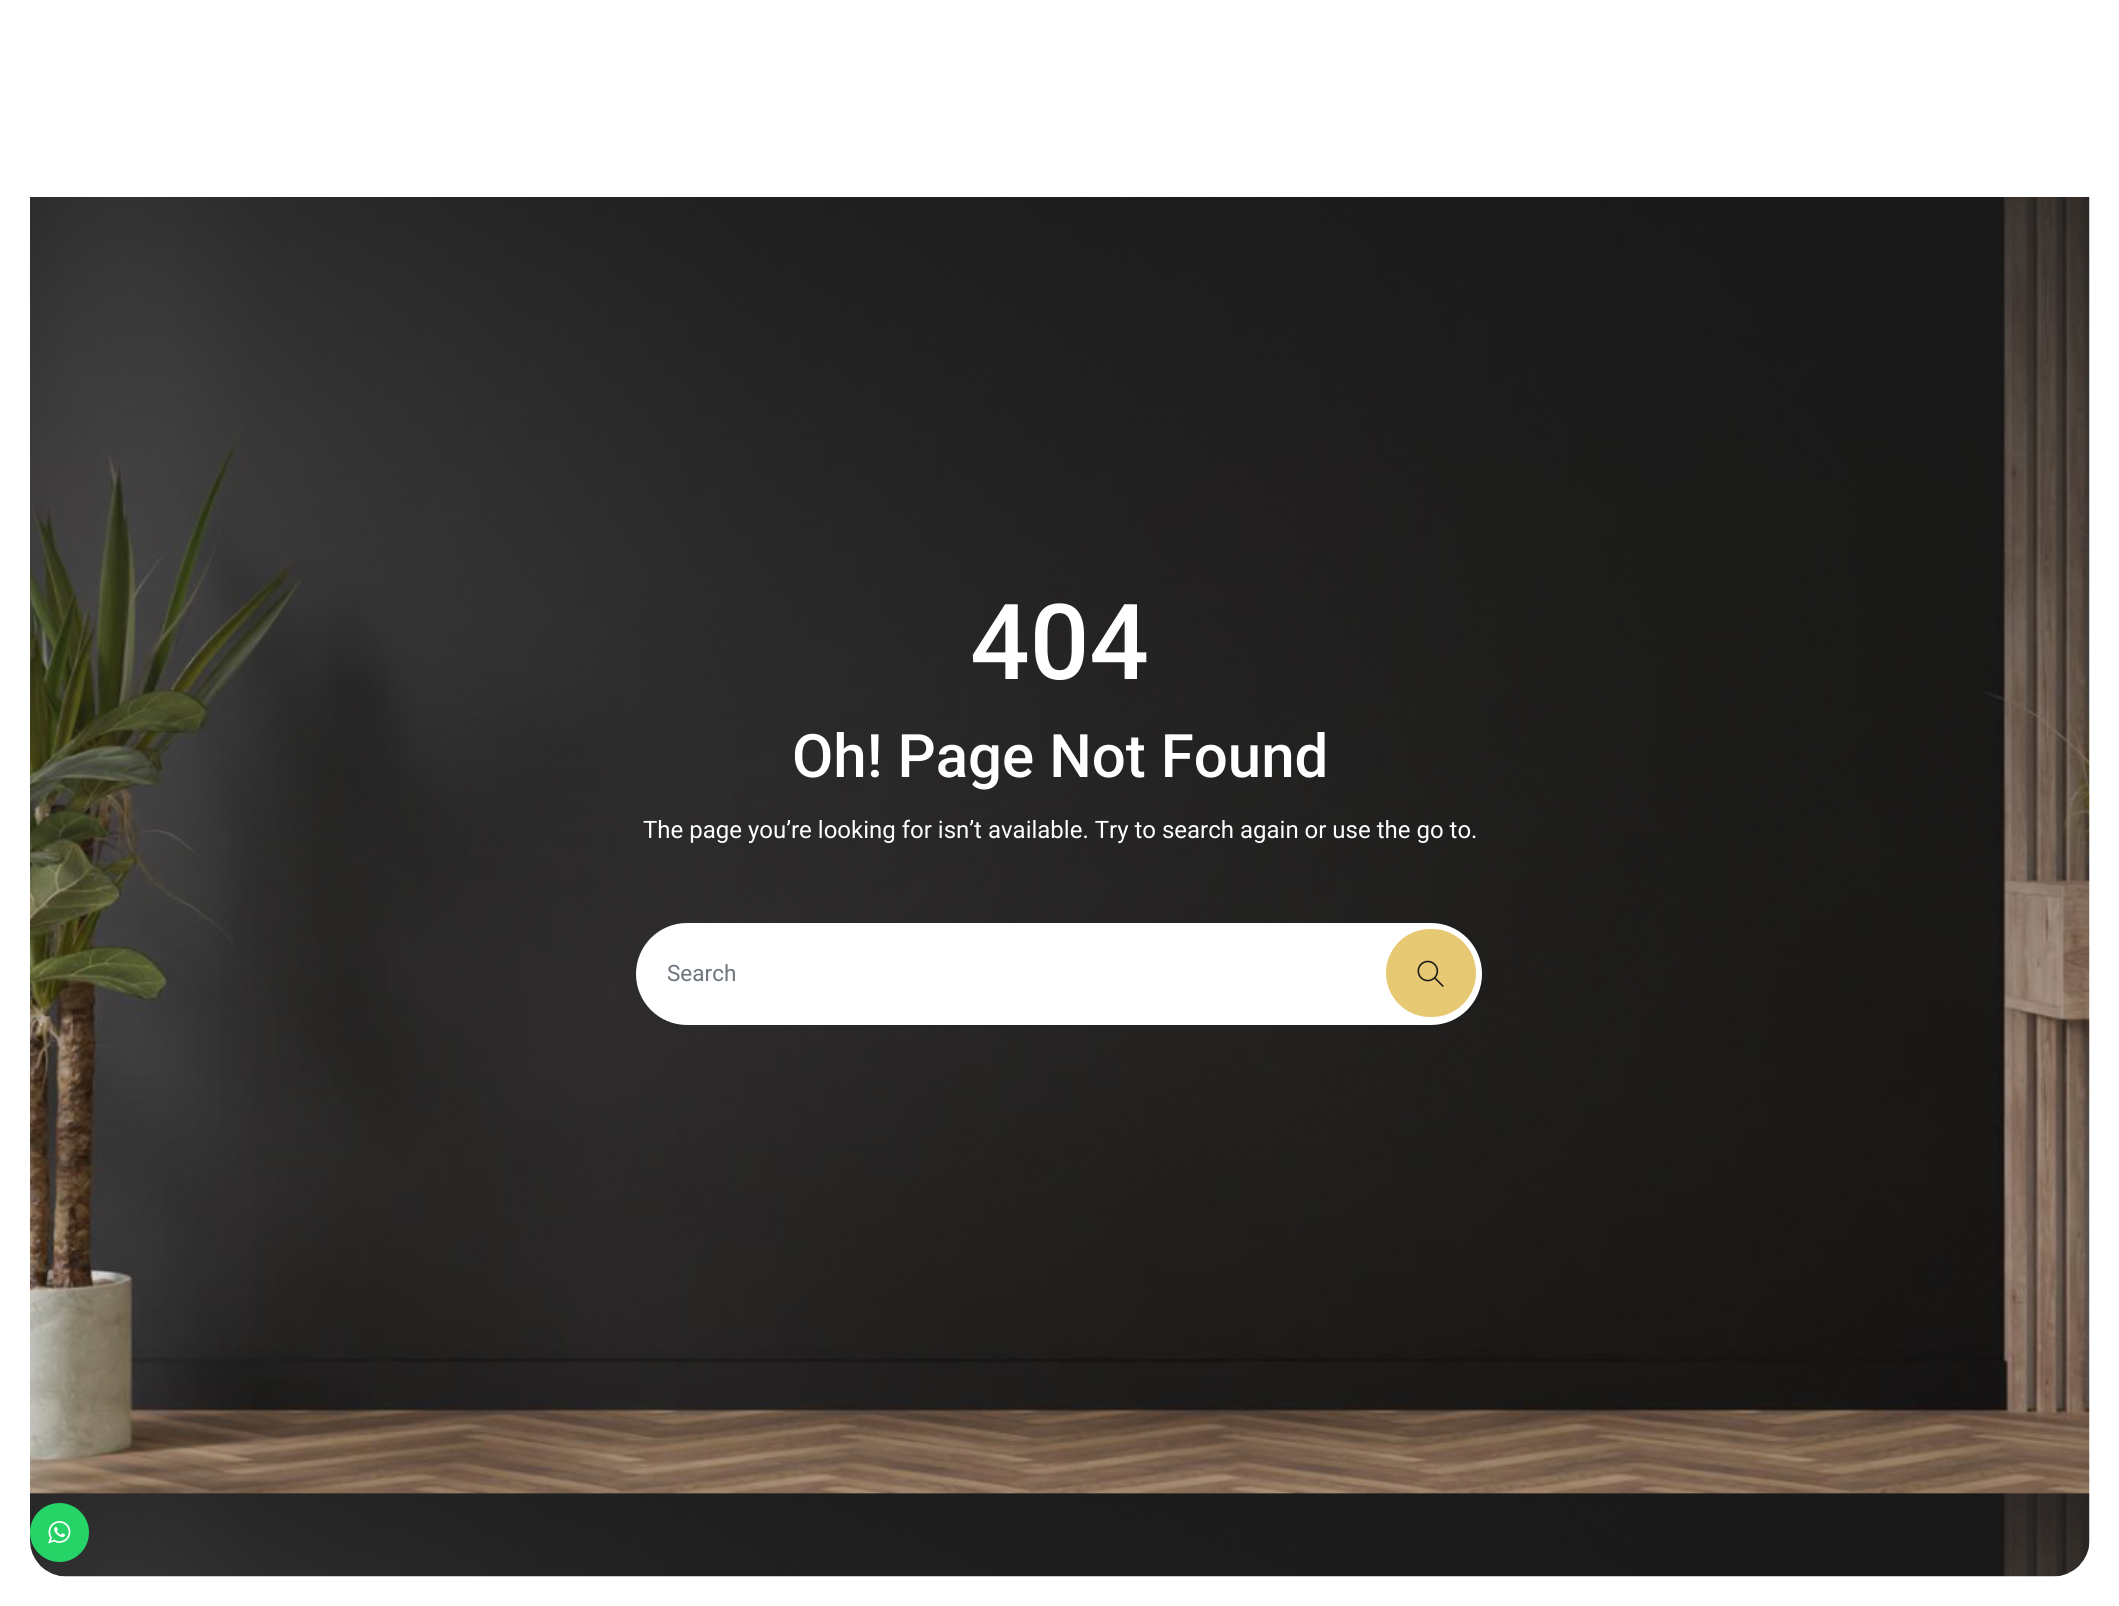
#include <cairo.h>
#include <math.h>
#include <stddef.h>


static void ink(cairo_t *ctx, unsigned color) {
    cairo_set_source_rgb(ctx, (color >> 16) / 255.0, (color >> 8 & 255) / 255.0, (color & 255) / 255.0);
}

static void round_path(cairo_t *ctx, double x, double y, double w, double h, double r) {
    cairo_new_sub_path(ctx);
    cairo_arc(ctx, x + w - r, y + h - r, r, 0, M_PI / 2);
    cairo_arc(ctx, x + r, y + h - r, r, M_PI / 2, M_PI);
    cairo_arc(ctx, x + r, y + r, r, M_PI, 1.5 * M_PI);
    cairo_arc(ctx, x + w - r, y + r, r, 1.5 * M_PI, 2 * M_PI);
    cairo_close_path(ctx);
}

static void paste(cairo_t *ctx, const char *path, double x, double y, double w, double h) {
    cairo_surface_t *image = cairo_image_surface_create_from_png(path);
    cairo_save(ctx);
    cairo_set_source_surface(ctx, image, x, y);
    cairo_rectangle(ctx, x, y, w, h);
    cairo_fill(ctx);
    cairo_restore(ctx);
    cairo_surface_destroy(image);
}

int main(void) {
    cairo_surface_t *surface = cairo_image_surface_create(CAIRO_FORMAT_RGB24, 2119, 1606);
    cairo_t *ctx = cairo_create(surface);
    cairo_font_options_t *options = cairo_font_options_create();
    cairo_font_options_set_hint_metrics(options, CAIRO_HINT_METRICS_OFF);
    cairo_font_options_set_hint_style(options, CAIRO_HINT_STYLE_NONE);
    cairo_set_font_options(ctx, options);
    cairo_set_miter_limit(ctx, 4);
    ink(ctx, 0xFFFFFF);
    cairo_paint(ctx);
    paste(ctx, "media/1.png", 30, 197, 2060, 1380);
    cairo_select_font_face(ctx, "Roboto Medium", CAIRO_FONT_SLANT_NORMAL, CAIRO_FONT_WEIGHT_NORMAL);
    cairo_set_font_size(ctx, 105);
    ink(ctx, 0xFFFFFF);
    cairo_move_to(ctx, 970, 679);
    cairo_show_text(ctx, "404");
    cairo_set_font_size(ctx, 60);
    cairo_move_to(ctx, 792, 777);
    cairo_show_text(ctx, "Oh! Page Not Found");
    cairo_select_font_face(ctx, "Roboto", CAIRO_FONT_SLANT_NORMAL, CAIRO_FONT_WEIGHT_NORMAL);
    cairo_set_font_size(ctx, 24);
    cairo_move_to(ctx, 643, 838);
    cairo_show_text(ctx, "The page you’re looking for isn’t available. Try to search again or use the go to.");
    round_path(ctx, 636, 923, 846, 102, 51);
    cairo_fill(ctx);
    cairo_set_font_size(ctx, 22.5);
    ink(ctx, 0x6C757D);
    cairo_move_to(ctx, 667, 981);
    cairo_show_text(ctx, "Search");
    ink(ctx, 0xE7C873);
    round_path(ctx, 1386, 929, 90, 88, 44);
    cairo_fill(ctx);
    paste(ctx, "media/2.png", 1417, 960, 27, 27);
    ink(ctx, 0x25D366);
    cairo_arc(ctx, 59.5, 1532.5, 29.5, 0, 2 * M_PI);
    cairo_fill(ctx);
    paste(ctx, "media/3.png", 48, 1521, 23, 23);
    cairo_surface_write_to_png(surface, "image.png");
    cairo_font_options_destroy(options);
    cairo_destroy(ctx);
    cairo_surface_destroy(surface);
    return 0;
}
